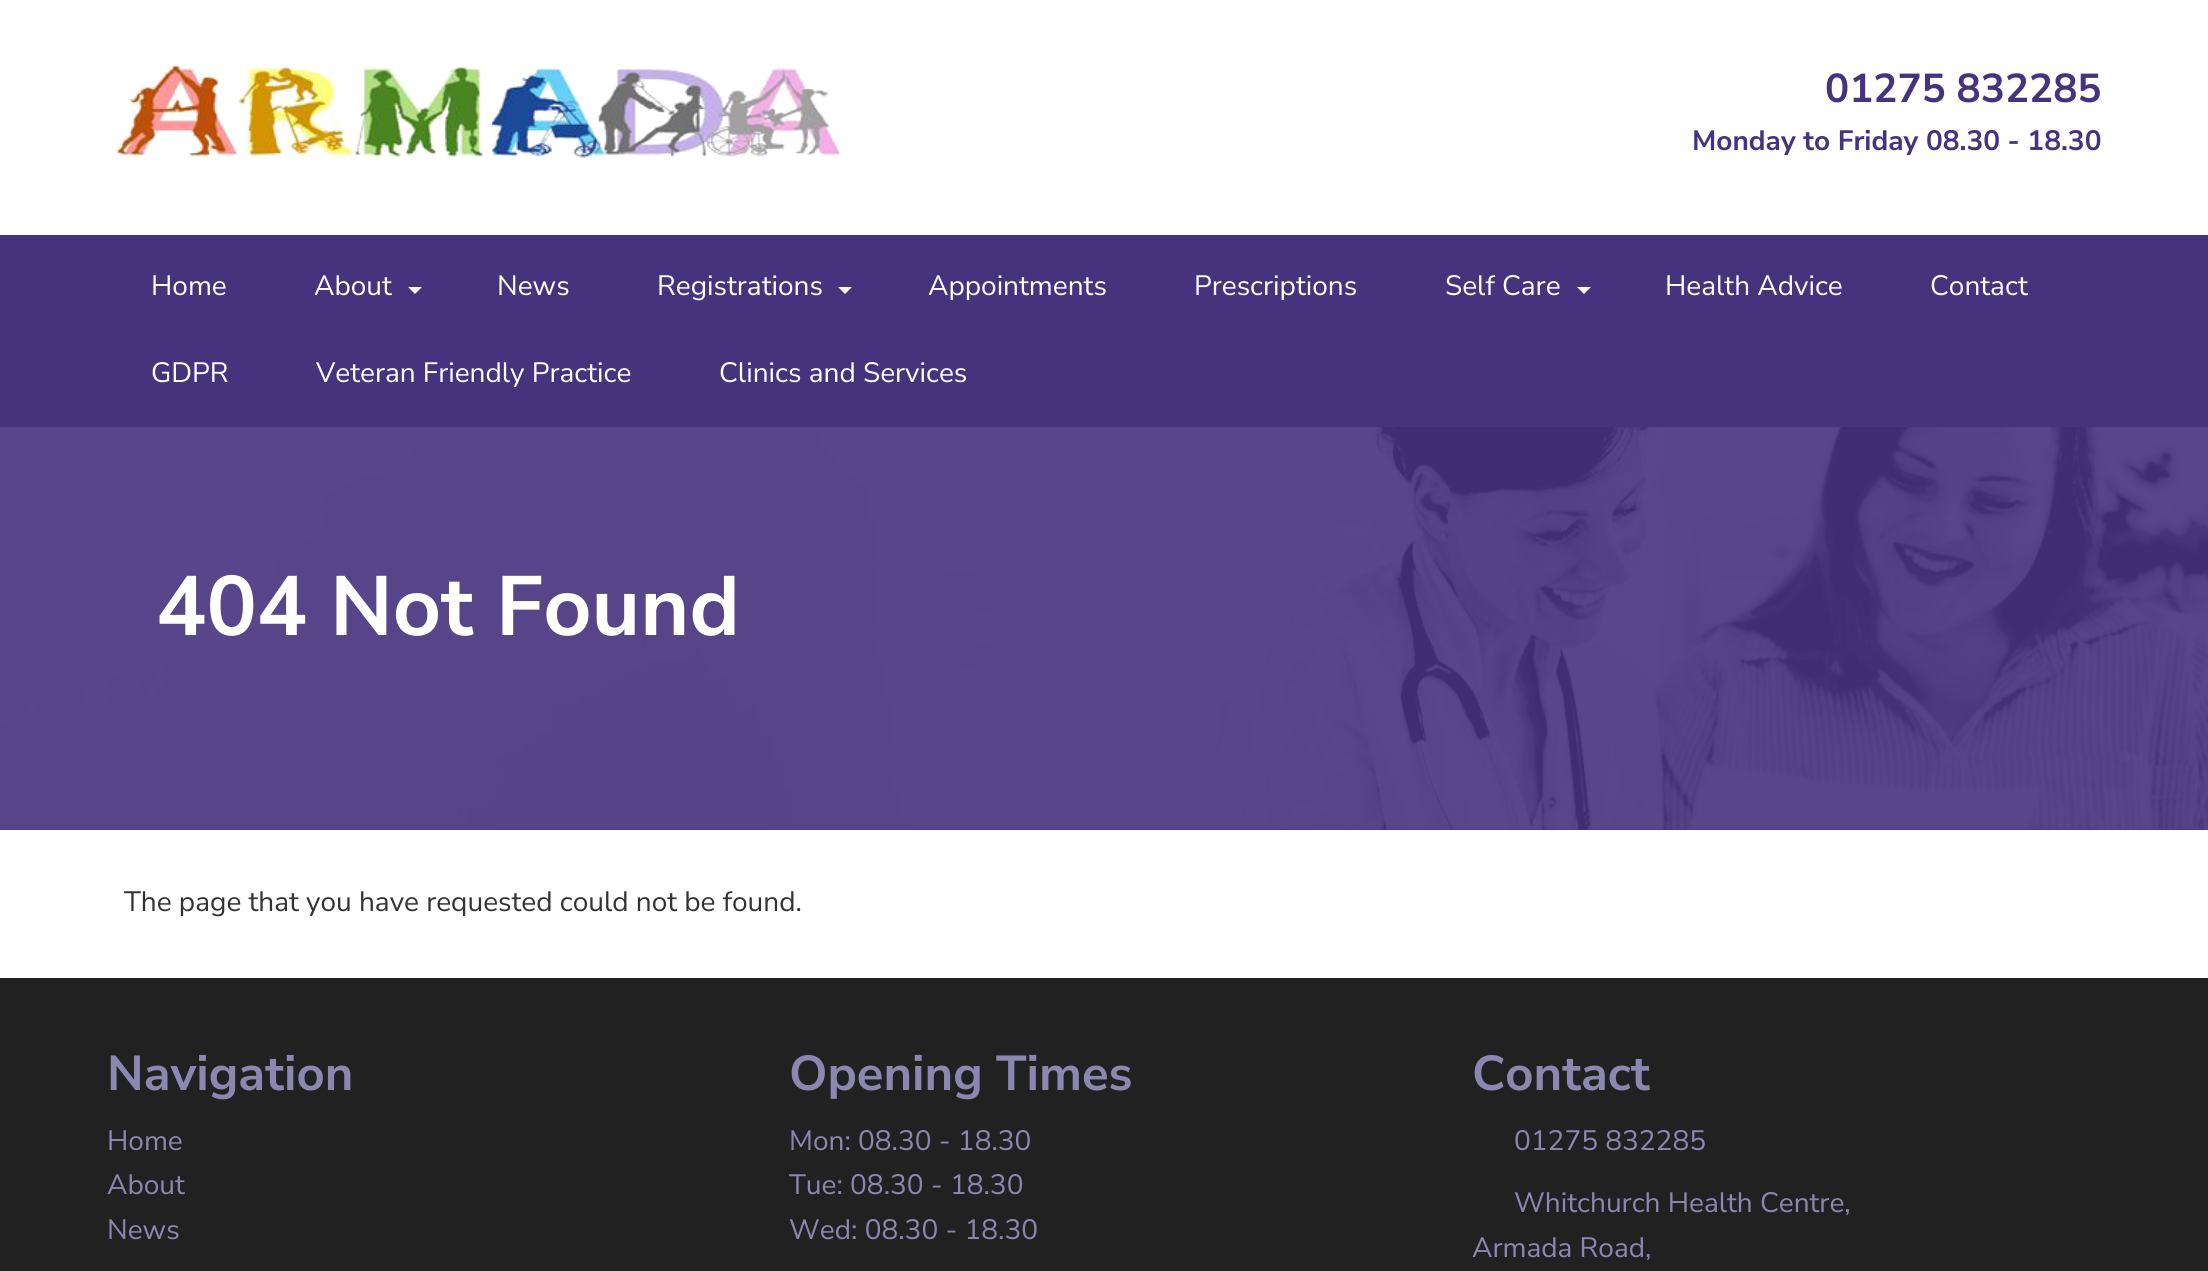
#include <cairo.h>
#include <math.h>
#include <stddef.h>

typedef struct { double x, y; const char *s; } line_t;

static void ink(cairo_t *ctx, unsigned color) {
    cairo_set_source_rgb(ctx, (color >> 16) / 255.0, (color >> 8 & 255) / 255.0, (color & 255) / 255.0);
}

static void paste(cairo_t *ctx, const char *path, double x, double y, double w, double h) {
    cairo_surface_t *image = cairo_image_surface_create_from_png(path);
    cairo_save(ctx);
    cairo_set_source_surface(ctx, image, x, y);
    cairo_rectangle(ctx, x, y, w, h);
    cairo_fill(ctx);
    cairo_restore(ctx);
    cairo_surface_destroy(image);
}

int main(void) {
    cairo_surface_t *surface = cairo_image_surface_create(CAIRO_FORMAT_RGB24, 2208, 1271);
    cairo_t *ctx = cairo_create(surface);
    cairo_font_options_t *options = cairo_font_options_create();
    cairo_font_options_set_hint_metrics(options, CAIRO_HINT_METRICS_OFF);
    cairo_font_options_set_hint_style(options, CAIRO_HINT_STYLE_NONE);
    cairo_set_font_options(ctx, options);
    cairo_set_miter_limit(ctx, 4);
    ink(ctx, 0xFFFFFF);
    cairo_paint(ctx);
    paste(ctx, "media/1.png", 113, 64, 728, 96);
    cairo_select_font_face(ctx, "Nunito Sans", CAIRO_FONT_SLANT_NORMAL, CAIRO_FONT_WEIGHT_BOLD);
    cairo_set_font_size(ctx, 40.25);
    ink(ctx, 0x46337F);
    cairo_move_to(ctx, 1825, 102);
    cairo_show_text(ctx, "01275 832285");
    cairo_set_font_size(ctx, 28);
    cairo_move_to(ctx, 1692, 150);
    cairo_show_text(ctx, "Monday to Friday 08.30 - 18.30");
    ink(ctx, 0x46337E);
    cairo_rectangle(ctx, 0, 235, 2208, 192);
    cairo_fill(ctx);
    cairo_select_font_face(ctx, "Nunito Sans", CAIRO_FONT_SLANT_NORMAL, CAIRO_FONT_WEIGHT_NORMAL);
    ink(ctx, 0xFFFFFF);
    cairo_move_to(ctx, 151, 295);
    cairo_show_text(ctx, "Home");
    cairo_move_to(ctx, 314, 295);
    cairo_show_text(ctx, "About");
    cairo_new_path(ctx);
    cairo_move_to(ctx, 408, 287);
    cairo_line_to(ctx, 422, 287);
    cairo_line_to(ctx, 415, 294);
    cairo_close_path(ctx);
    cairo_fill(ctx);
    cairo_move_to(ctx, 497, 295);
    cairo_show_text(ctx, "News");
    cairo_move_to(ctx, 657, 295);
    cairo_show_text(ctx, "Registrations");
    cairo_new_path(ctx);
    cairo_move_to(ctx, 838, 287);
    cairo_line_to(ctx, 852, 287);
    cairo_line_to(ctx, 845, 294);
    cairo_close_path(ctx);
    cairo_fill(ctx);
    {
        static const line_t items[] = {
            {928, 295, "Appointments"},
            {1194, 295, "Prescriptions"},
            {1445, 295, "Self Care"},
        };
        for (size_t i = 0; i < sizeof items / sizeof *items; i++) {
            cairo_move_to(ctx, items[i].x, items[i].y);
            cairo_show_text(ctx, items[i].s);
        }
    }
    cairo_new_path(ctx);
    cairo_move_to(ctx, 1577, 287);
    cairo_line_to(ctx, 1591, 287);
    cairo_line_to(ctx, 1584, 294);
    cairo_close_path(ctx);
    cairo_fill(ctx);
    {
        static const line_t items[] = {
            {1665, 295, "Health Advice"},
            {1930, 295, "Contact"},
            {151, 382, "GDPR"},
            {316, 382, "Veteran Friendly Practice"},
            {719, 382, "Clinics and Services"},
        };
        for (size_t i = 0; i < sizeof items / sizeof *items; i++) {
            cairo_move_to(ctx, items[i].x, items[i].y);
            cairo_show_text(ctx, items[i].s);
        }
    }
    ink(ctx, 0x45327E);
    cairo_rectangle(ctx, 0, 427, 2208, 403);
    cairo_fill(ctx);
    paste(ctx, "media/2.png", 0, 427, 2208, 403);
    cairo_select_font_face(ctx, "Nunito Sans", CAIRO_FONT_SLANT_NORMAL, CAIRO_FONT_WEIGHT_BOLD);
    cairo_set_font_size(ctx, 84);
    ink(ctx, 0xFFFFFF);
    cairo_move_to(ctx, 156, 635);
    cairo_show_text(ctx, "404 Not Found");
    cairo_select_font_face(ctx, "Nunito Sans", CAIRO_FONT_SLANT_NORMAL, CAIRO_FONT_WEIGHT_NORMAL);
    cairo_set_font_size(ctx, 28);
    ink(ctx, 0x333333);
    cairo_move_to(ctx, 124, 911);
    cairo_show_text(ctx, "The page that you have requested could not be found.");
    ink(ctx, 0x212121);
    cairo_rectangle(ctx, 0, 978, 2208, 293);
    cairo_fill(ctx);
    cairo_select_font_face(ctx, "Nunito Sans", CAIRO_FONT_SLANT_NORMAL, CAIRO_FONT_WEIGHT_BOLD);
    cairo_set_font_size(ctx, 49);
    ink(ctx, 0x8B87B1);
    cairo_move_to(ctx, 107, 1090);
    cairo_show_text(ctx, "Navigation");
    cairo_select_font_face(ctx, "Nunito Sans", CAIRO_FONT_SLANT_NORMAL, CAIRO_FONT_WEIGHT_NORMAL);
    cairo_set_font_size(ctx, 28);
    {
        static const line_t items[] = {
            {107, 1150, "Home"},
            {107, 1194, "About"},
            {107, 1239, "News"},
        };
        for (size_t i = 0; i < sizeof items / sizeof *items; i++) {
            cairo_move_to(ctx, items[i].x, items[i].y);
            cairo_show_text(ctx, items[i].s);
        }
    }
    cairo_select_font_face(ctx, "Nunito Sans", CAIRO_FONT_SLANT_NORMAL, CAIRO_FONT_WEIGHT_BOLD);
    cairo_set_font_size(ctx, 49);
    cairo_move_to(ctx, 789, 1090);
    cairo_show_text(ctx, "Opening Times");
    cairo_select_font_face(ctx, "Nunito Sans", CAIRO_FONT_SLANT_NORMAL, CAIRO_FONT_WEIGHT_NORMAL);
    cairo_set_font_size(ctx, 28);
    {
        static const line_t items[] = {
            {789, 1150, "Mon: 08.30 - 18.30"},
            {789, 1194, "Tue: 08.30 - 18.30"},
            {789, 1239, "Wed: 08.30 - 18.30"},
        };
        for (size_t i = 0; i < sizeof items / sizeof *items; i++) {
            cairo_move_to(ctx, items[i].x, items[i].y);
            cairo_show_text(ctx, items[i].s);
        }
    }
    cairo_select_font_face(ctx, "Nunito Sans", CAIRO_FONT_SLANT_NORMAL, CAIRO_FONT_WEIGHT_BOLD);
    cairo_set_font_size(ctx, 49);
    cairo_move_to(ctx, 1472, 1090);
    cairo_show_text(ctx, "Contact");
    cairo_select_font_face(ctx, "Nunito Sans", CAIRO_FONT_SLANT_NORMAL, CAIRO_FONT_WEIGHT_NORMAL);
    cairo_set_font_size(ctx, 28);
    {
        static const line_t items[] = {
            {1514, 1150, "01275 832285"},
            {1514, 1212, "Whitchurch Health Centre,"},
            {1472, 1257, "Armada Road,"},
        };
        for (size_t i = 0; i < sizeof items / sizeof *items; i++) {
            cairo_move_to(ctx, items[i].x, items[i].y);
            cairo_show_text(ctx, items[i].s);
        }
    }
    cairo_surface_write_to_png(surface, "image.png");
    cairo_font_options_destroy(options);
    cairo_destroy(ctx);
    cairo_surface_destroy(surface);
    return 0;
}
